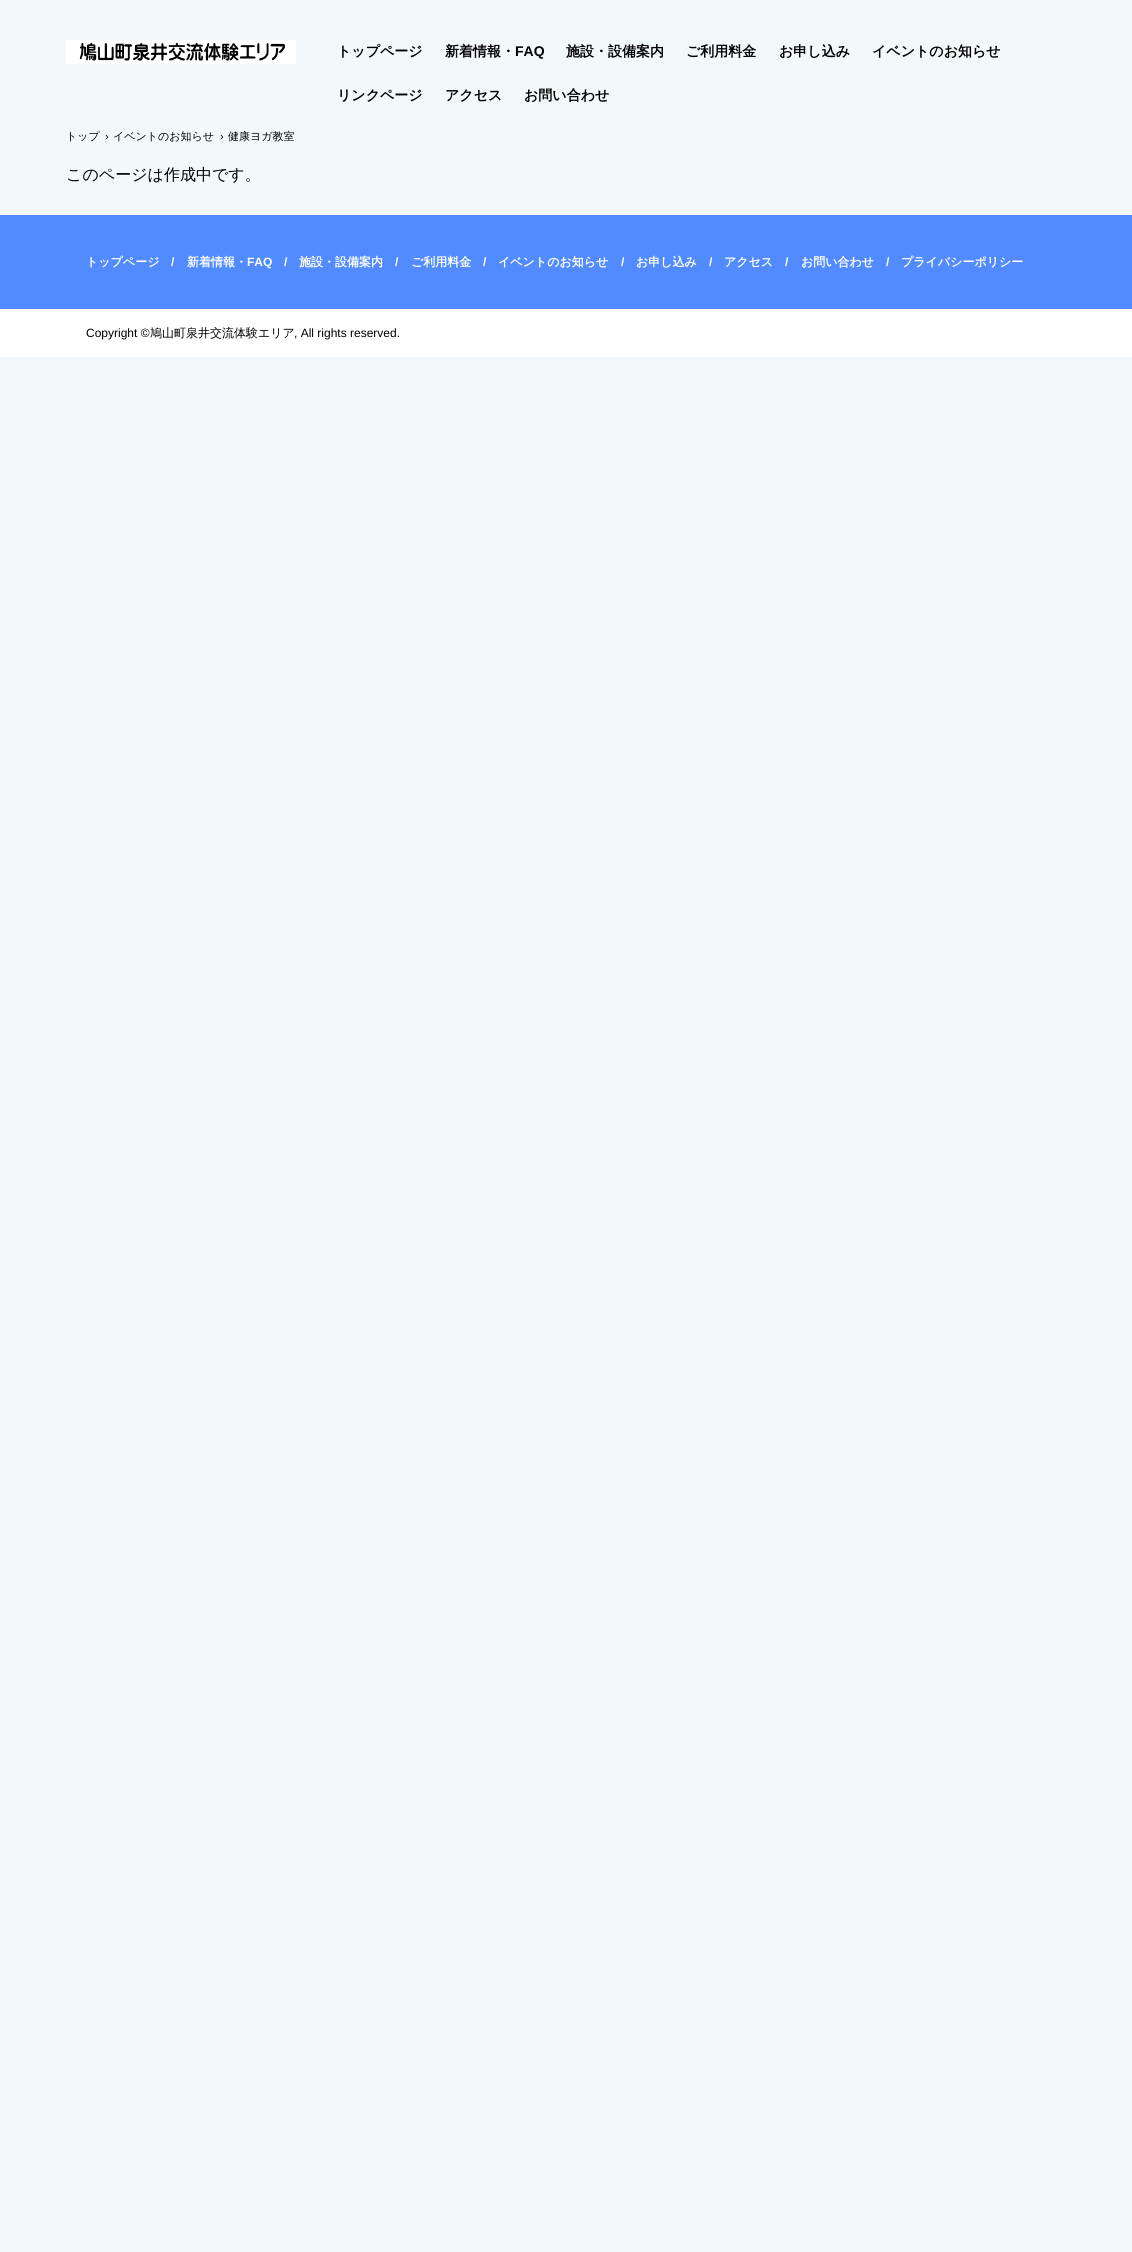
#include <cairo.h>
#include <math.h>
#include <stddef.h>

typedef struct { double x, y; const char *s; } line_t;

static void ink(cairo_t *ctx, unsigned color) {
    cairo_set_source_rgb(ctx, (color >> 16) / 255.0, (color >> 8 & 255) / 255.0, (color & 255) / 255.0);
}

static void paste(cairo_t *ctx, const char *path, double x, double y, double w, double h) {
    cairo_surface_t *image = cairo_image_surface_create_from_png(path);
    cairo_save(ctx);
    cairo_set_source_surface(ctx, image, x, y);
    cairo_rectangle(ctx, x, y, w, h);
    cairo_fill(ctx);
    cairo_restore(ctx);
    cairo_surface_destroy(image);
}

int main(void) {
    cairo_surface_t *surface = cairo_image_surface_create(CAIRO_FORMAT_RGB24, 1132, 2252);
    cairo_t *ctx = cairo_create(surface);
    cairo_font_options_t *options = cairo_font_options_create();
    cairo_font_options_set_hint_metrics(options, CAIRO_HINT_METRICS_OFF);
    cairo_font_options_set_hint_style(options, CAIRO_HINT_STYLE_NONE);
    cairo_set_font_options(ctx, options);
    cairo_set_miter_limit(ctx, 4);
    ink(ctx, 0xF3F8FA);
    cairo_paint(ctx);
    paste(ctx, "media/1.png", 66, 40, 230, 24);
    cairo_select_font_face(ctx, "WenQuanYi Zen Hei", CAIRO_FONT_SLANT_NORMAL, CAIRO_FONT_WEIGHT_BOLD);
    cairo_set_font_size(ctx, 14);
    ink(ctx, 0x000000);
    cairo_move_to(ctx, 337, 56);
    cairo_show_text(ctx, "トップページ");
    cairo_move_to(ctx, 445, 56);
    cairo_show_text(ctx, "新着情報・");
    cairo_select_font_face(ctx, "Liberation Sans", CAIRO_FONT_SLANT_NORMAL, CAIRO_FONT_WEIGHT_BOLD);
    cairo_move_to(ctx, 515, 56);
    cairo_show_text(ctx, "FAQ");
    cairo_select_font_face(ctx, "WenQuanYi Zen Hei", CAIRO_FONT_SLANT_NORMAL, CAIRO_FONT_WEIGHT_BOLD);
    {
        static const line_t items[] = {
            {566, 56, "施設・設備案内"},
            {686, 56, "ご利用料金"},
            {779, 56, "お申し込み"},
            {872, 56, "イベントのお知らせ"},
            {337, 100, "リンクページ"},
            {445, 100, "アクセス"},
            {524, 100, "お問い合わせ"},
        };
        for (size_t i = 0; i < sizeof items / sizeof *items; i++) {
            cairo_move_to(ctx, items[i].x, items[i].y);
            cairo_show_text(ctx, items[i].s);
        }
    }
    cairo_select_font_face(ctx, "WenQuanYi Zen Hei Medium", CAIRO_FONT_SLANT_NORMAL, CAIRO_FONT_WEIGHT_NORMAL);
    cairo_set_font_size(ctx, 11);
    cairo_move_to(ctx, 66, 140);
    cairo_show_text(ctx, "トップ");
    cairo_select_font_face(ctx, "Liberation Sans", CAIRO_FONT_SLANT_NORMAL, CAIRO_FONT_WEIGHT_NORMAL);
    cairo_move_to(ctx, 105, 140);
    cairo_show_text(ctx, "›");
    cairo_select_font_face(ctx, "WenQuanYi Zen Hei Medium", CAIRO_FONT_SLANT_NORMAL, CAIRO_FONT_WEIGHT_NORMAL);
    cairo_move_to(ctx, 113, 140);
    cairo_show_text(ctx, "イベントのお知らせ");
    cairo_select_font_face(ctx, "Liberation Sans", CAIRO_FONT_SLANT_NORMAL, CAIRO_FONT_WEIGHT_NORMAL);
    cairo_move_to(ctx, 220, 140);
    cairo_show_text(ctx, "›");
    cairo_select_font_face(ctx, "WenQuanYi Zen Hei Medium", CAIRO_FONT_SLANT_NORMAL, CAIRO_FONT_WEIGHT_NORMAL);
    cairo_move_to(ctx, 228, 140);
    cairo_show_text(ctx, "健康ヨガ教室");
    cairo_set_font_size(ctx, 16);
    cairo_move_to(ctx, 66, 180);
    cairo_show_text(ctx, "このページは作成中です。");
    ink(ctx, 0xFFFFFF);
    cairo_rectangle(ctx, 0, 309, 1132, 48);
    cairo_fill(ctx);
    ink(ctx, 0x518BFF);
    cairo_rectangle(ctx, 0, 215, 1132, 94);
    cairo_fill(ctx);
    cairo_select_font_face(ctx, "WenQuanYi Zen Hei", CAIRO_FONT_SLANT_NORMAL, CAIRO_FONT_WEIGHT_BOLD);
    cairo_set_font_size(ctx, 12);
    ink(ctx, 0xFFFFFF);
    cairo_move_to(ctx, 86, 266);
    cairo_show_text(ctx, "トップページ");
    cairo_select_font_face(ctx, "Liberation Sans", CAIRO_FONT_SLANT_NORMAL, CAIRO_FONT_WEIGHT_BOLD);
    cairo_move_to(ctx, 171, 266);
    cairo_show_text(ctx, "/");
    cairo_select_font_face(ctx, "WenQuanYi Zen Hei", CAIRO_FONT_SLANT_NORMAL, CAIRO_FONT_WEIGHT_BOLD);
    cairo_move_to(ctx, 187, 266);
    cairo_show_text(ctx, "新着情報・");
    cairo_select_font_face(ctx, "Liberation Sans", CAIRO_FONT_SLANT_NORMAL, CAIRO_FONT_WEIGHT_BOLD);
    cairo_move_to(ctx, 247, 266);
    cairo_show_text(ctx, "FAQ");
    cairo_move_to(ctx, 284, 266);
    cairo_show_text(ctx, "/");
    cairo_select_font_face(ctx, "WenQuanYi Zen Hei", CAIRO_FONT_SLANT_NORMAL, CAIRO_FONT_WEIGHT_BOLD);
    cairo_move_to(ctx, 299, 266);
    cairo_show_text(ctx, "施設・設備案内");
    cairo_select_font_face(ctx, "Liberation Sans", CAIRO_FONT_SLANT_NORMAL, CAIRO_FONT_WEIGHT_BOLD);
    cairo_move_to(ctx, 395, 266);
    cairo_show_text(ctx, "/");
    cairo_select_font_face(ctx, "WenQuanYi Zen Hei", CAIRO_FONT_SLANT_NORMAL, CAIRO_FONT_WEIGHT_BOLD);
    cairo_move_to(ctx, 411, 266);
    cairo_show_text(ctx, "ご利用料金");
    cairo_select_font_face(ctx, "Liberation Sans", CAIRO_FONT_SLANT_NORMAL, CAIRO_FONT_WEIGHT_BOLD);
    cairo_move_to(ctx, 483, 266);
    cairo_show_text(ctx, "/");
    cairo_select_font_face(ctx, "WenQuanYi Zen Hei", CAIRO_FONT_SLANT_NORMAL, CAIRO_FONT_WEIGHT_BOLD);
    cairo_move_to(ctx, 498, 266);
    cairo_show_text(ctx, "イベントのお知らせ");
    cairo_select_font_face(ctx, "Liberation Sans", CAIRO_FONT_SLANT_NORMAL, CAIRO_FONT_WEIGHT_BOLD);
    cairo_move_to(ctx, 621, 266);
    cairo_show_text(ctx, "/");
    cairo_select_font_face(ctx, "WenQuanYi Zen Hei", CAIRO_FONT_SLANT_NORMAL, CAIRO_FONT_WEIGHT_BOLD);
    cairo_move_to(ctx, 636, 266);
    cairo_show_text(ctx, "お申し込み");
    cairo_select_font_face(ctx, "Liberation Sans", CAIRO_FONT_SLANT_NORMAL, CAIRO_FONT_WEIGHT_BOLD);
    cairo_move_to(ctx, 709, 266);
    cairo_show_text(ctx, "/");
    cairo_select_font_face(ctx, "WenQuanYi Zen Hei", CAIRO_FONT_SLANT_NORMAL, CAIRO_FONT_WEIGHT_BOLD);
    cairo_move_to(ctx, 724, 266);
    cairo_show_text(ctx, "アクセス");
    cairo_select_font_face(ctx, "Liberation Sans", CAIRO_FONT_SLANT_NORMAL, CAIRO_FONT_WEIGHT_BOLD);
    cairo_move_to(ctx, 785, 266);
    cairo_show_text(ctx, "/");
    cairo_select_font_face(ctx, "WenQuanYi Zen Hei", CAIRO_FONT_SLANT_NORMAL, CAIRO_FONT_WEIGHT_BOLD);
    cairo_move_to(ctx, 801, 266);
    cairo_show_text(ctx, "お問い合わせ");
    cairo_select_font_face(ctx, "Liberation Sans", CAIRO_FONT_SLANT_NORMAL, CAIRO_FONT_WEIGHT_BOLD);
    cairo_move_to(ctx, 886, 266);
    cairo_show_text(ctx, "/");
    cairo_select_font_face(ctx, "WenQuanYi Zen Hei", CAIRO_FONT_SLANT_NORMAL, CAIRO_FONT_WEIGHT_BOLD);
    cairo_move_to(ctx, 901, 266);
    cairo_show_text(ctx, "プライバシーポリシー");
    cairo_select_font_face(ctx, "Liberation Sans", CAIRO_FONT_SLANT_NORMAL, CAIRO_FONT_WEIGHT_NORMAL);
    ink(ctx, 0x000000);
    cairo_move_to(ctx, 86, 337);
    cairo_show_text(ctx, "Copyright ©");
    cairo_select_font_face(ctx, "WenQuanYi Zen Hei Medium", CAIRO_FONT_SLANT_NORMAL, CAIRO_FONT_WEIGHT_NORMAL);
    cairo_move_to(ctx, 150, 337);
    cairo_show_text(ctx, "鳩山町泉井交流体験エリア");
    cairo_select_font_face(ctx, "Liberation Sans", CAIRO_FONT_SLANT_NORMAL, CAIRO_FONT_WEIGHT_NORMAL);
    cairo_move_to(ctx, 294, 337);
    cairo_show_text(ctx, ", All rights reserved.");
    cairo_surface_write_to_png(surface, "image.png");
    cairo_font_options_destroy(options);
    cairo_destroy(ctx);
    cairo_surface_destroy(surface);
    return 0;
}
